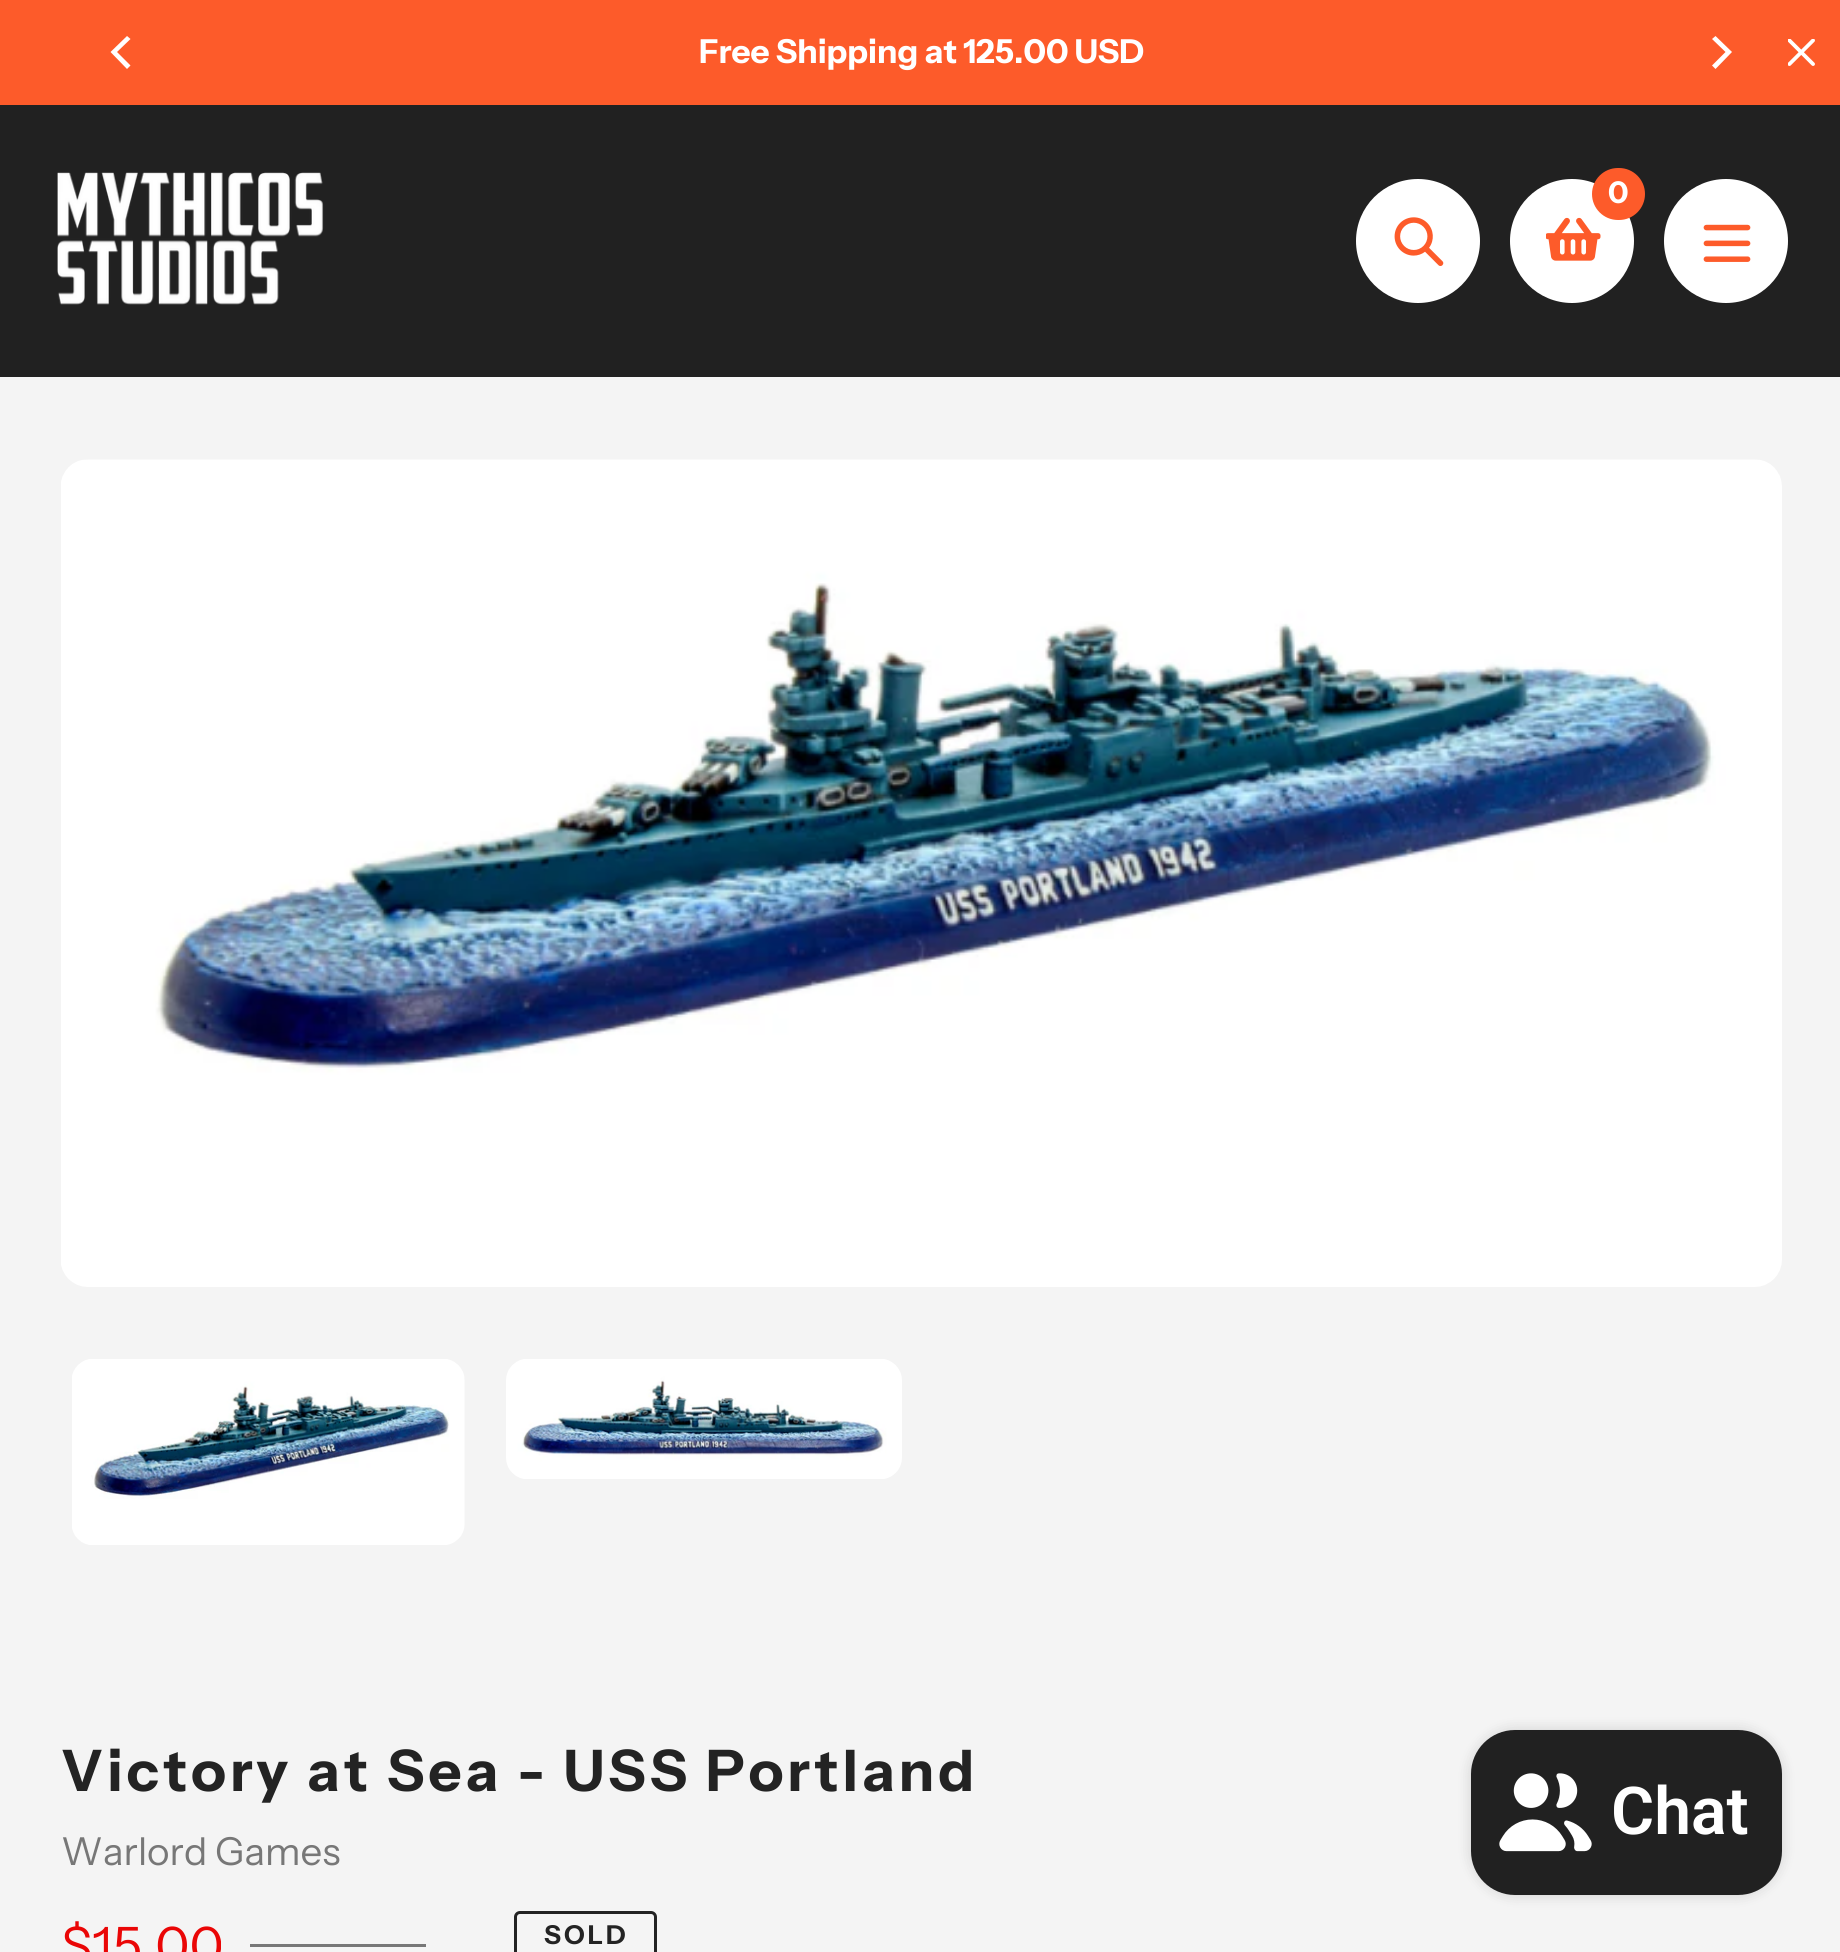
#include <cairo.h>
#include <math.h>
#include <stddef.h>


static void ink(cairo_t *ctx, unsigned color) {
    cairo_set_source_rgb(ctx, (color >> 16) / 255.0, (color >> 8 & 255) / 255.0, (color & 255) / 255.0);
}

static void write_spaced(cairo_t *ctx, double x, double y, const char *s, double letter, double word) {
    cairo_move_to(ctx, x, y);
    while (*s) {
        char ch[5] = {0};
        int n = 0;
        do ch[n++] = *s++; while ((*s & 0xC0) == 0x80);
        cairo_show_text(ctx, ch);
        cairo_rel_move_to(ctx, letter + word * (*ch == ' '), 0);
    }
}

static void round_path(cairo_t *ctx, double x, double y, double w, double h, double r) {
    cairo_new_sub_path(ctx);
    cairo_arc(ctx, x + w - r, y + h - r, r, 0, M_PI / 2);
    cairo_arc(ctx, x + r, y + h - r, r, M_PI / 2, M_PI);
    cairo_arc(ctx, x + r, y + r, r, M_PI, 1.5 * M_PI);
    cairo_arc(ctx, x + w - r, y + r, r, 1.5 * M_PI, 2 * M_PI);
    cairo_close_path(ctx);
}

static void blur_box(cairo_t *ctx, double x, double y, double w, double h, double r, double blur, double alpha) {
    cairo_push_group_with_content(ctx, CAIRO_CONTENT_ALPHA);
    cairo_set_operator(ctx, CAIRO_OPERATOR_SOURCE);
    for (int i = 15; i >= -15 && fmin(w, h) + blur * i / 3 > 0; i -= 2) {
        double e = blur * i / 6;
        cairo_set_source_rgba(ctx, 0, 0, 0, alpha * erfc((i - 1) / 8.5) / 2);
        round_path(ctx, x - e, y - e, w + 2 * e, h + 2 * e, fmax(0, fmin(r + e + blur * .6, fmin(w, h) / 2 + e)));
        cairo_fill(ctx);
    }
    cairo_pattern_t *soft = cairo_pop_group(ctx);
    cairo_mask(ctx, soft);
    cairo_pattern_destroy(soft);
}

static void paste(cairo_t *ctx, const char *path, double x, double y, double w, double h) {
    cairo_surface_t *image = cairo_image_surface_create_from_png(path);
    cairo_save(ctx);
    cairo_set_source_surface(ctx, image, x, y);
    cairo_rectangle(ctx, x, y, w, h);
    cairo_fill(ctx);
    cairo_restore(ctx);
    cairo_surface_destroy(image);
}

int main(void) {
    cairo_surface_t *surface = cairo_image_surface_create(CAIRO_FORMAT_RGB24, 1840, 1952);
    cairo_t *ctx = cairo_create(surface);
    cairo_font_options_t *options = cairo_font_options_create();
    cairo_font_options_set_hint_metrics(options, CAIRO_HINT_METRICS_OFF);
    cairo_font_options_set_hint_style(options, CAIRO_HINT_STYLE_NONE);
    cairo_set_font_options(ctx, options);
    cairo_set_miter_limit(ctx, 4);
    ink(ctx, 0xF4F4F4);
    cairo_paint(ctx);
    ink(ctx, 0xFD5B2A);
    cairo_rectangle(ctx, 0, 0, 1840, 105);
    cairo_fill(ctx);
    ink(ctx, 0xFFFFFF);
    cairo_new_path(ctx);
    cairo_move_to(ctx, 110.5, 52);
    cairo_line_to(ctx, 127, 69);
    cairo_line_to(ctx, 130.5, 65.5);
    cairo_line_to(ctx, 117, 52);
    cairo_line_to(ctx, 130.5, 39);
    cairo_line_to(ctx, 127, 36);
    cairo_close_path(ctx);
    cairo_fill(ctx);
    cairo_select_font_face(ctx, "Instrument Sans", CAIRO_FONT_SLANT_NORMAL, CAIRO_FONT_WEIGHT_BOLD);
    cairo_set_font_size(ctx, 33);
    cairo_move_to(ctx, 699, 63);
    cairo_show_text(ctx, "Free Shipping at 125.00 USD");
    cairo_new_path(ctx);
    cairo_move_to(ctx, 1732, 52);
    cairo_line_to(ctx, 1715.5, 36);
    cairo_line_to(ctx, 1712, 39);
    cairo_line_to(ctx, 1725.5, 52);
    cairo_line_to(ctx, 1712, 65.5);
    cairo_line_to(ctx, 1715.5, 69);
    cairo_close_path(ctx);
    cairo_fill(ctx);
    paste(ctx, "media/1.png", 1788, 39, 27, 27);
    ink(ctx, 0x212121);
    cairo_rectangle(ctx, 0, 105, 1840, 272);
    cairo_fill(ctx);
    paste(ctx, "media/2.png", 57, 172, 267, 133);
    ink(ctx, 0xFFFFFF);
    cairo_arc(ctx, 1418, 241, 62, 0, 2 * M_PI);
    cairo_fill(ctx);
    paste(ctx, "media/3.png", 1394, 217, 50, 49);
    cairo_arc(ctx, 1572, 241, 62, 0, 2 * M_PI);
    cairo_fill(ctx);
    paste(ctx, "media/4.png", 1546, 217, 55, 44);
    ink(ctx, 0xFD5B2A);
    round_path(ctx, 1592, 168, 53, 52, 26);
    cairo_fill(ctx);
    cairo_set_font_size(ctx, 30);
    ink(ctx, 0xFFFFFF);
    cairo_move_to(ctx, 1608, 203);
    cairo_show_text(ctx, "0");
    cairo_new_path(ctx);
    cairo_arc(ctx, 1726, 241, 62, 0, 2 * M_PI);
    cairo_fill(ctx);
    paste(ctx, "media/5.png", 1703, 224, 48, 38);
    paste(ctx, "media/6.png", 61, 459, 1721, 828);
    paste(ctx, "media/7.png", 72, 1359, 393, 186);
    paste(ctx, "media/8.png", 506, 1359, 396, 120);
    cairo_set_font_size(ctx, 57.25);
    ink(ctx, 0x232323);
    write_spaced(ctx, 61, 1791, "Victory at Sea - USS Portland", 4.1, 0);
    cairo_select_font_face(ctx, "Instrument Sans", CAIRO_FONT_SLANT_NORMAL, CAIRO_FONT_WEIGHT_NORMAL);
    cairo_set_font_size(ctx, 38.5);
    ink(ctx, 0x777777);
    cairo_move_to(ctx, 61, 1865);
    cairo_show_text(ctx, "Warlord Games");
    cairo_set_font_size(ctx, 51.5);
    ink(ctx, 0xEA0606);
    cairo_move_to(ctx, 61, 1964);
    cairo_show_text(ctx, "$15.00");
    ink(ctx, 0x777777);
    cairo_rectangle(ctx, 250, 1944, 176, 3);
    cairo_fill(ctx);
    round_path(ctx, 515.5, 1912.5, 140, 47, 4.5);
    ink(ctx, 0x232323);
    cairo_set_line_width(ctx, 3);
    cairo_stroke(ctx);
    cairo_select_font_face(ctx, "Instrument Sans", CAIRO_FONT_SLANT_NORMAL, CAIRO_FONT_WEIGHT_BOLD);
    cairo_set_font_size(ctx, 26);
    write_spaced(ctx, 544, 1944, "SOLD", 3, 0);
    ink(ctx, 0x000000);
    blur_box(ctx, 1471, 1730, 311, 165, 44, 7, 0.15);
    ink(ctx, 0x212121);
    round_path(ctx, 1471, 1730, 311, 165, 44);
    cairo_fill(ctx);
    paste(ctx, "media/9.png", 1499, 1773, 93, 79);
    cairo_select_font_face(ctx, "Roboto SemiBold", CAIRO_FONT_SLANT_NORMAL, CAIRO_FONT_WEIGHT_NORMAL);
    cairo_set_font_size(ctx, 66);
    ink(ctx, 0xFFFFFF);
    cairo_move_to(ctx, 1611, 1834);
    cairo_show_text(ctx, "Chat");
    cairo_surface_write_to_png(surface, "image.png");
    cairo_font_options_destroy(options);
    cairo_destroy(ctx);
    cairo_surface_destroy(surface);
    return 0;
}
